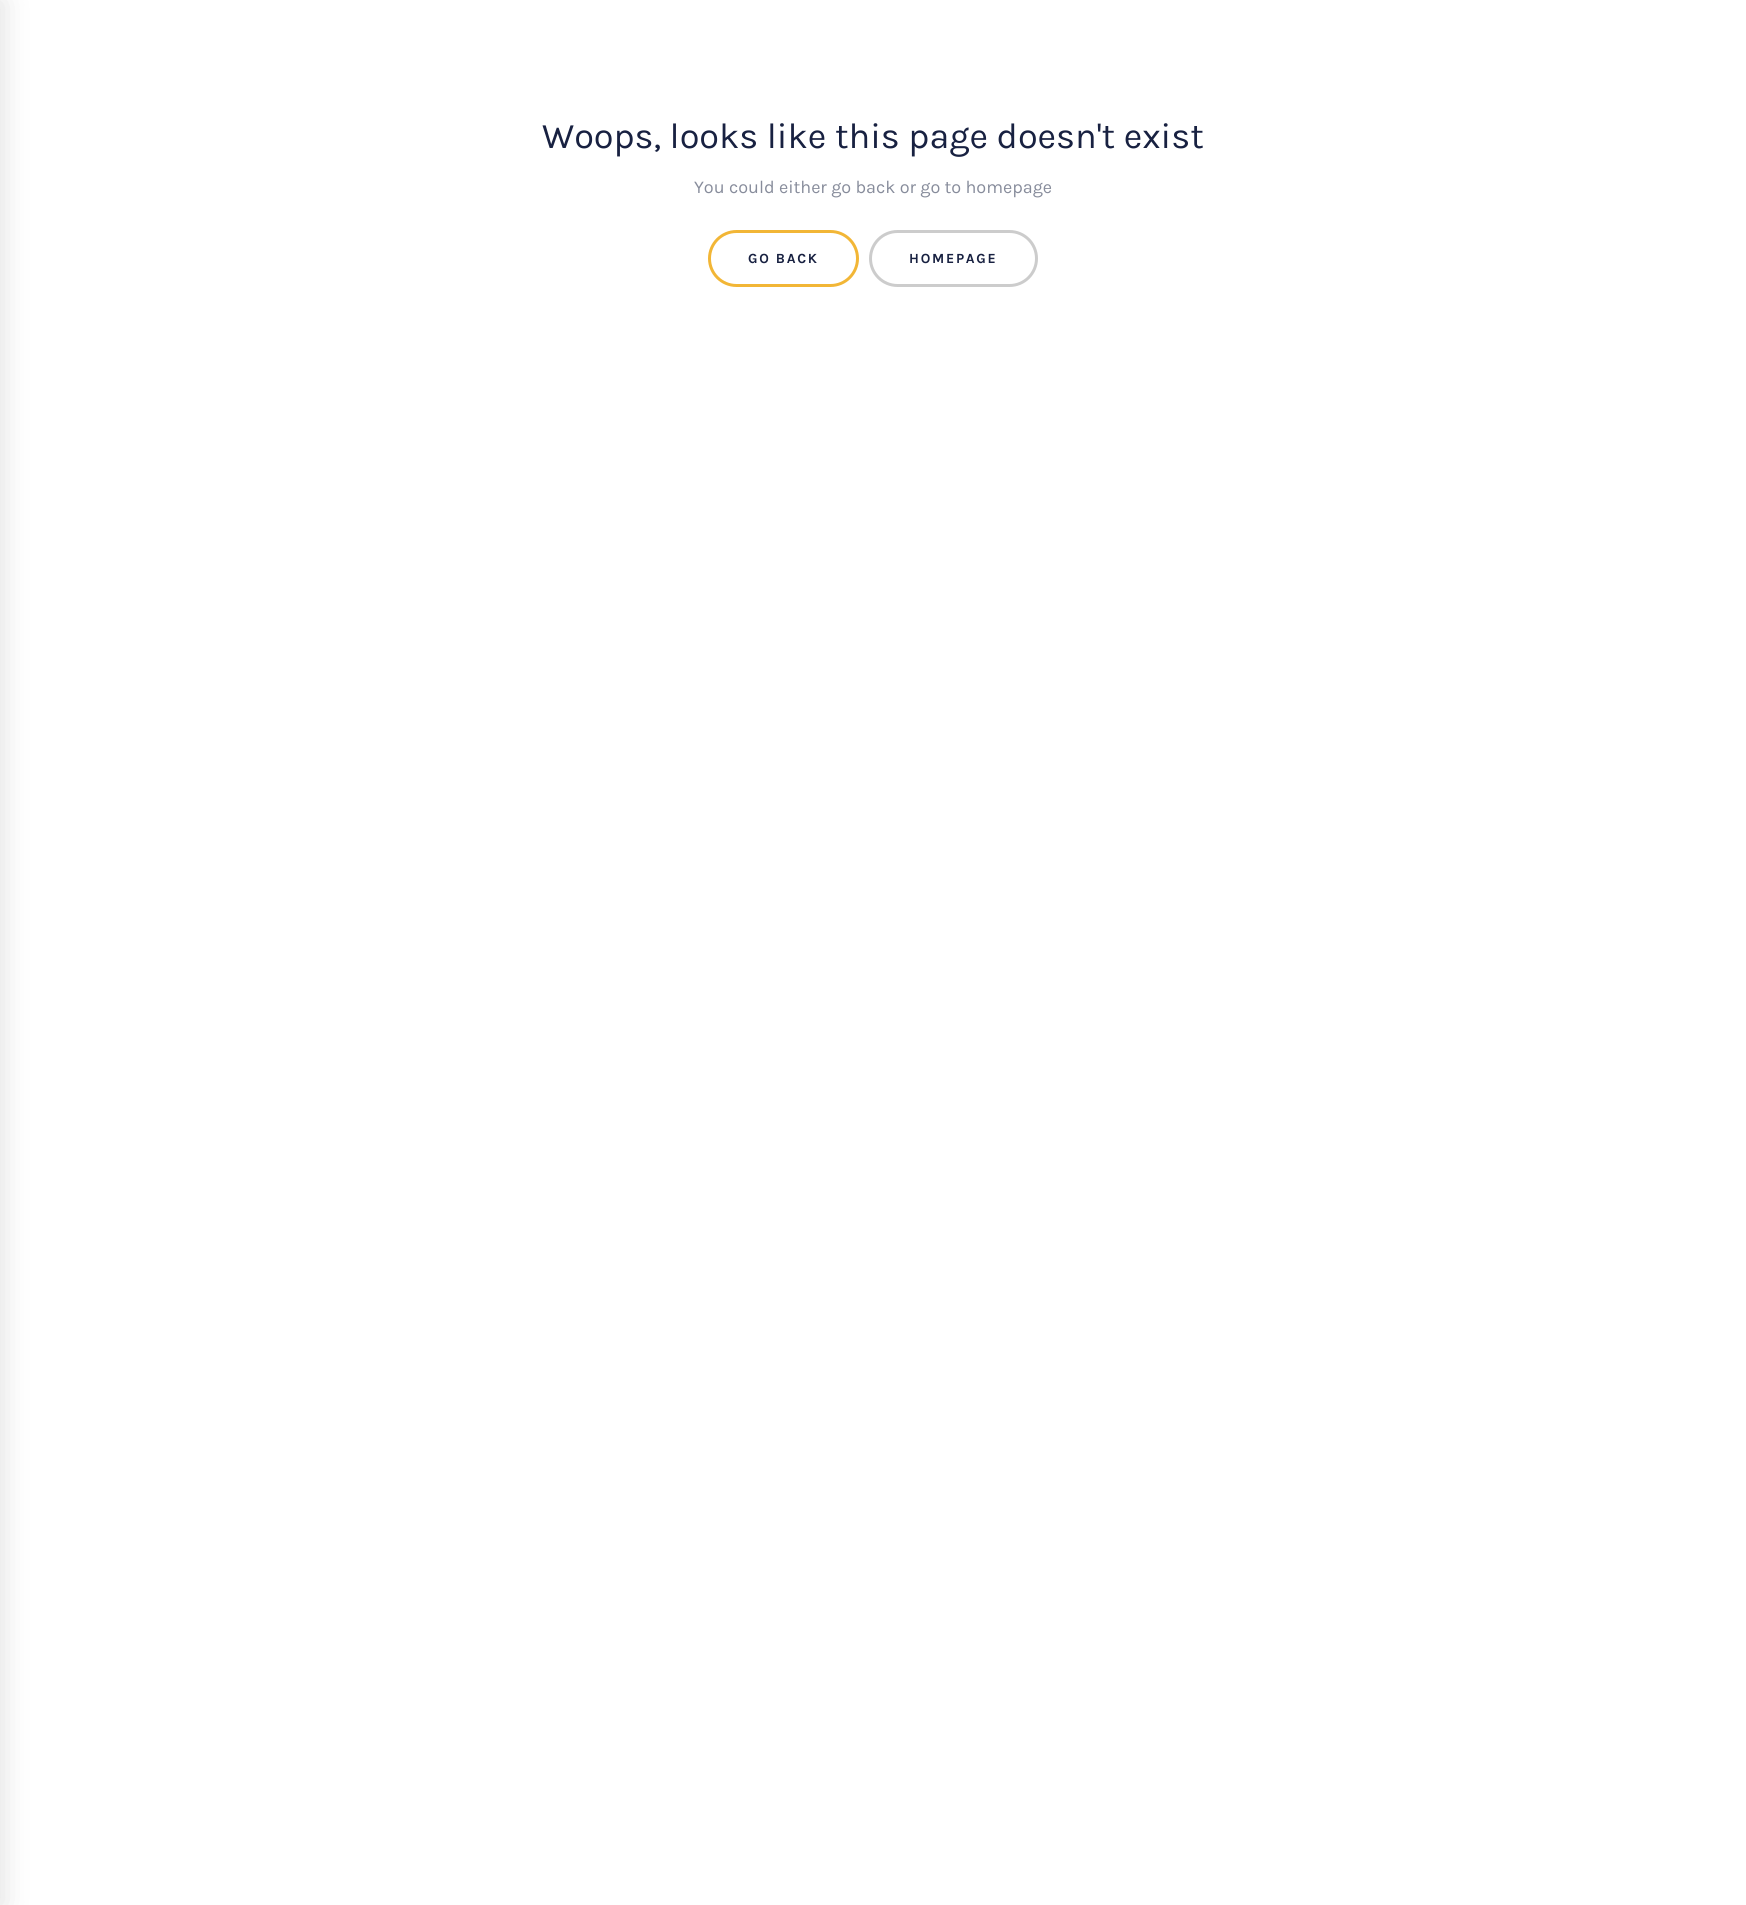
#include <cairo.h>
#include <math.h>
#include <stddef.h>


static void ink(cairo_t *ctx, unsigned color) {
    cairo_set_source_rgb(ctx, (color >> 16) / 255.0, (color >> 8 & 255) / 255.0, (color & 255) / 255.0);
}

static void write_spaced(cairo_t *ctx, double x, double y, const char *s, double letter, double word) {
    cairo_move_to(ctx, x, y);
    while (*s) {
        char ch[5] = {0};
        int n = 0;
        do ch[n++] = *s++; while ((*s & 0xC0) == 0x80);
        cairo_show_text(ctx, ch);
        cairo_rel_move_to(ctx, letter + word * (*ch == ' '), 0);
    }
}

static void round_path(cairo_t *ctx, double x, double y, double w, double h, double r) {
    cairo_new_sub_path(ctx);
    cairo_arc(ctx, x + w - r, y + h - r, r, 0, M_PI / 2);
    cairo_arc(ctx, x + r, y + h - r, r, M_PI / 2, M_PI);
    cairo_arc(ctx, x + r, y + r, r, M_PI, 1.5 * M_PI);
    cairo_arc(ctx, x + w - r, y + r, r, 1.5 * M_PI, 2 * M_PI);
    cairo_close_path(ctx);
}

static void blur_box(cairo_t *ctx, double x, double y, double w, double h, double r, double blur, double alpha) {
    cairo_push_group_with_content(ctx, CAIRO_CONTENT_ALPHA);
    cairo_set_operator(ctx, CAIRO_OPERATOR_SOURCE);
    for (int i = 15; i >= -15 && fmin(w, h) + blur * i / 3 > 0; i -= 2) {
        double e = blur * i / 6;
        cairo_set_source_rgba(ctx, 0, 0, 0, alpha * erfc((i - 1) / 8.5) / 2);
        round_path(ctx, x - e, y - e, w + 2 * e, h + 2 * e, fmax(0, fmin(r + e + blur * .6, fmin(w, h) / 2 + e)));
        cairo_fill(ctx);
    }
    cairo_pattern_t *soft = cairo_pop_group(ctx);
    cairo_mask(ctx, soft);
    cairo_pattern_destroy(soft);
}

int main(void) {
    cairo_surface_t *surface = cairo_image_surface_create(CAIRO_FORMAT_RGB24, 1746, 1905);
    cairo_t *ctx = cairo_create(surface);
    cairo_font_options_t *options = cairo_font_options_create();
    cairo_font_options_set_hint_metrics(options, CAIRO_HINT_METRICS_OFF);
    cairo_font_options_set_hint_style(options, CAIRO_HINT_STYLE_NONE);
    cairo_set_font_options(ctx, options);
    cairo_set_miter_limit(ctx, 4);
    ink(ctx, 0xFFFFFF);
    cairo_paint(ctx);
    ink(ctx, 0x000000);
    blur_box(ctx, -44, 1, 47, 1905, 0, 14.5, 0.12);
    cairo_select_font_face(ctx, "Karla", CAIRO_FONT_SLANT_NORMAL, CAIRO_FONT_WEIGHT_NORMAL);
    cairo_set_font_size(ctx, 36);
    ink(ctx, 0x182141);
    cairo_move_to(ctx, 542, 148);
    cairo_show_text(ctx, "Woops, looks like this page doesn't exist");
    cairo_set_font_size(ctx, 18);
    ink(ctx, 0x878C9B);
    cairo_move_to(ctx, 694, 193);
    cairo_show_text(ctx, "You could either go back or go to homepage");
    round_path(ctx, 709.5, 231.5, 148, 54, 27);
    ink(ctx, 0xF2B636);
    cairo_set_line_width(ctx, 3);
    cairo_stroke(ctx);
    cairo_select_font_face(ctx, "Karla", CAIRO_FONT_SLANT_NORMAL, CAIRO_FONT_WEIGHT_BOLD);
    cairo_set_font_size(ctx, 14);
    ink(ctx, 0x182141);
    write_spaced(ctx, 748, 263, "GO BACK", 1.75, 0);
    round_path(ctx, 870.5, 231.5, 166, 54, 27);
    ink(ctx, 0xCCCCCC);
    cairo_stroke(ctx);
    ink(ctx, 0x182141);
    write_spaced(ctx, 909, 263, "HOMEPAGE", 1.75, 0);
    cairo_surface_write_to_png(surface, "image.png");
    cairo_font_options_destroy(options);
    cairo_destroy(ctx);
    cairo_surface_destroy(surface);
    return 0;
}
